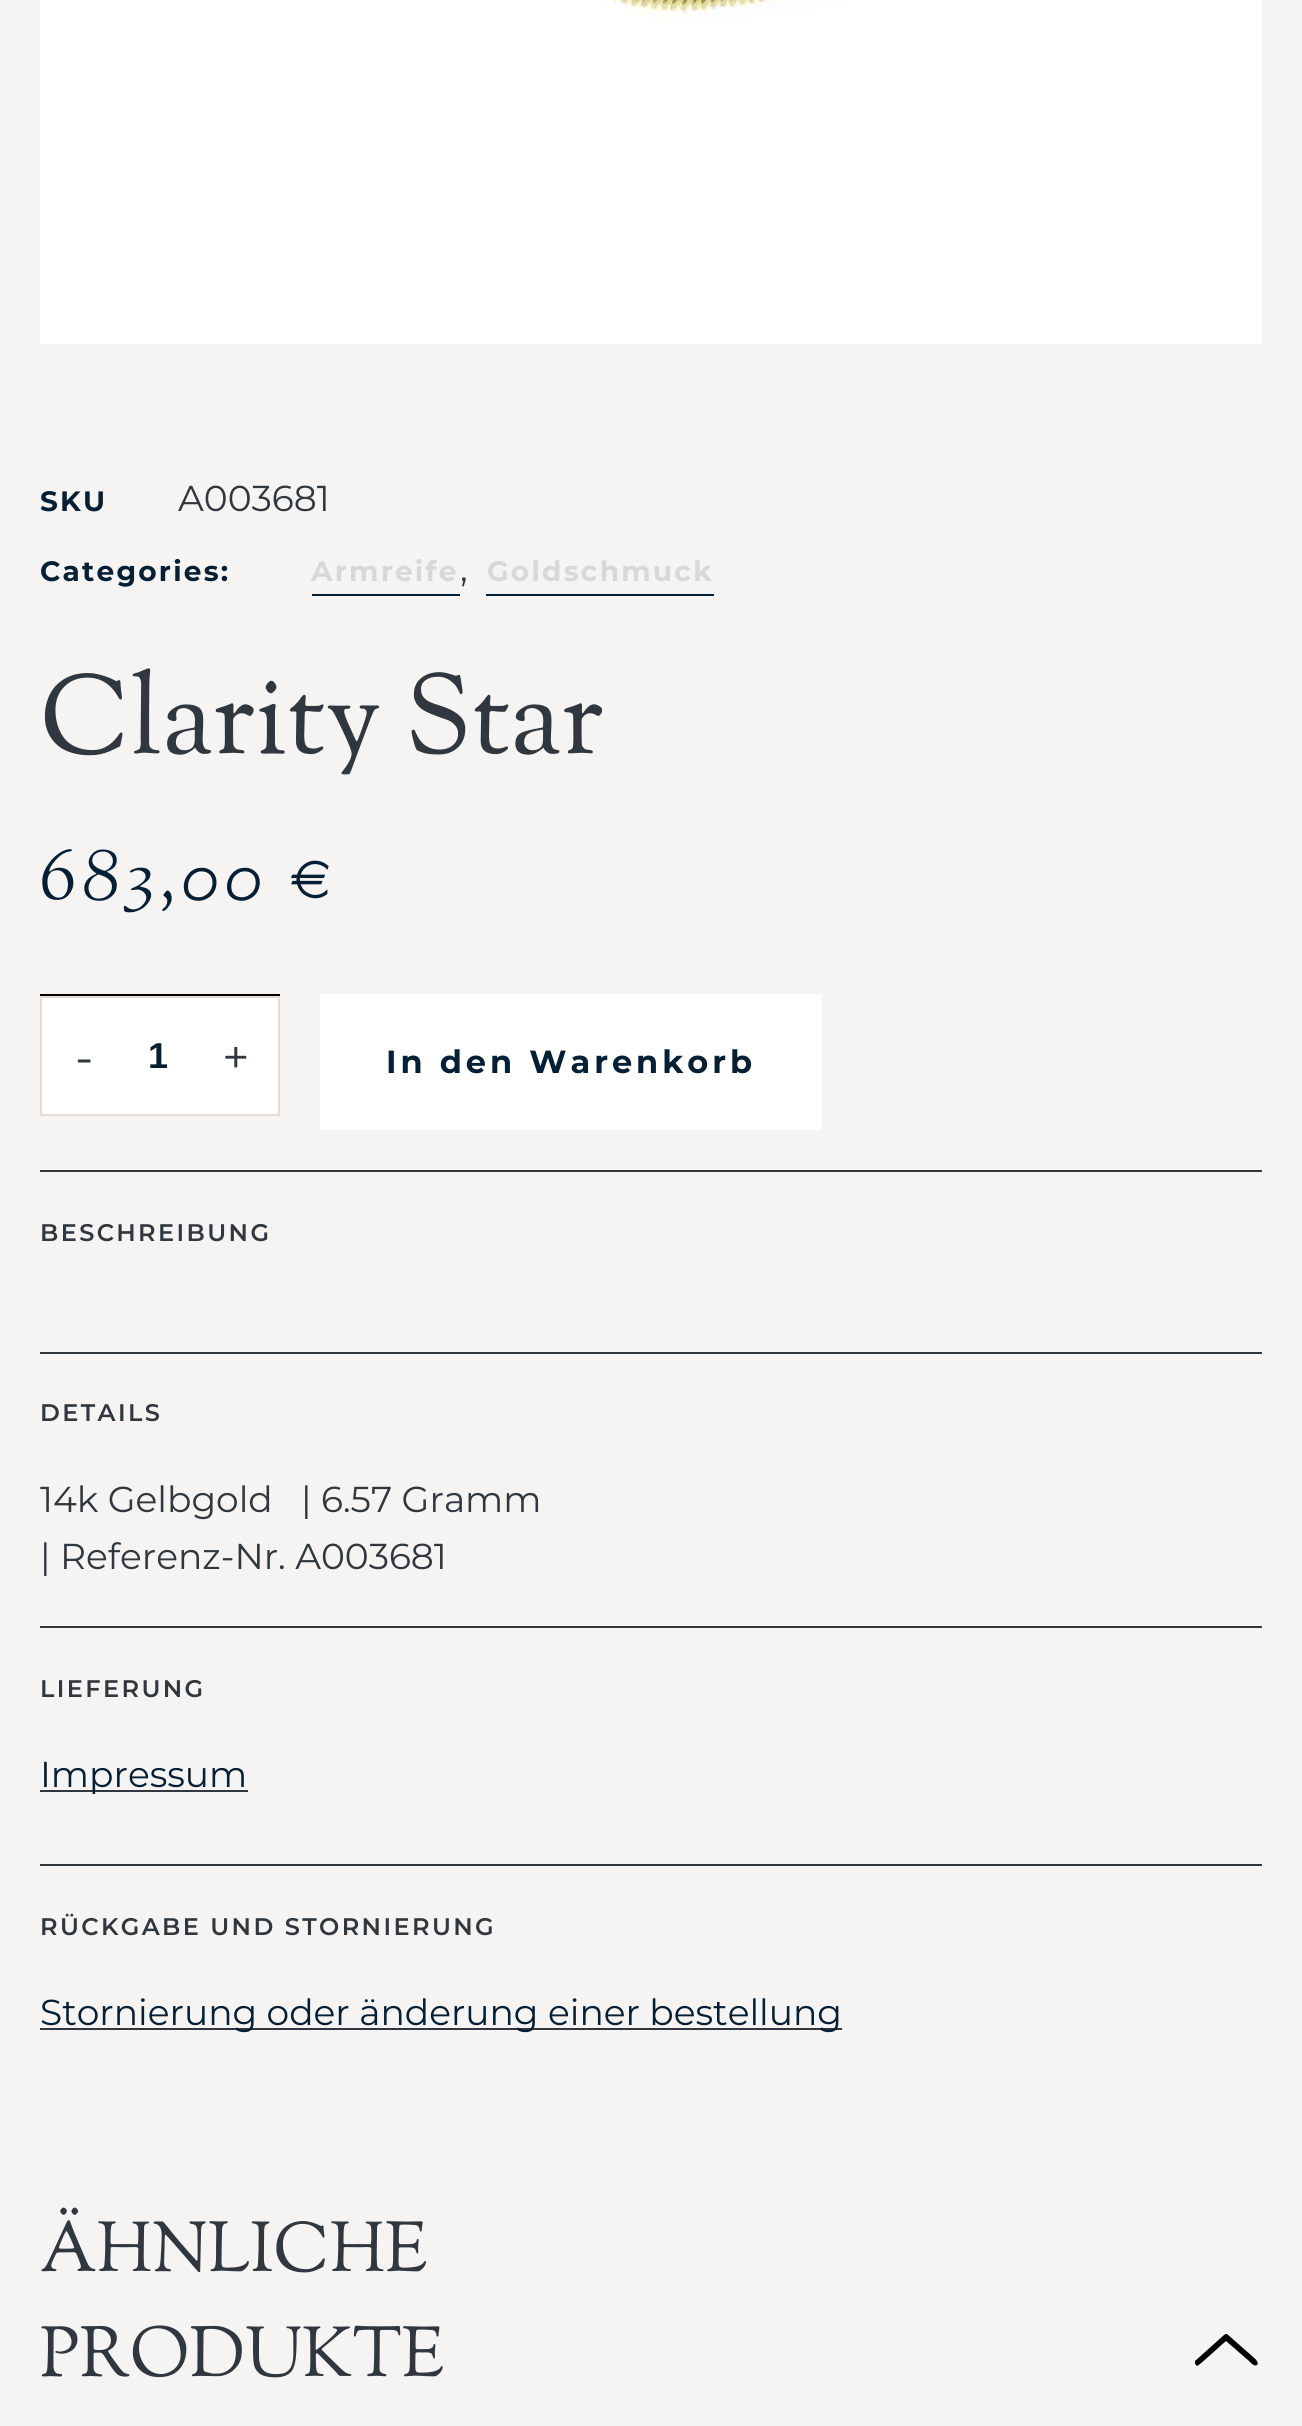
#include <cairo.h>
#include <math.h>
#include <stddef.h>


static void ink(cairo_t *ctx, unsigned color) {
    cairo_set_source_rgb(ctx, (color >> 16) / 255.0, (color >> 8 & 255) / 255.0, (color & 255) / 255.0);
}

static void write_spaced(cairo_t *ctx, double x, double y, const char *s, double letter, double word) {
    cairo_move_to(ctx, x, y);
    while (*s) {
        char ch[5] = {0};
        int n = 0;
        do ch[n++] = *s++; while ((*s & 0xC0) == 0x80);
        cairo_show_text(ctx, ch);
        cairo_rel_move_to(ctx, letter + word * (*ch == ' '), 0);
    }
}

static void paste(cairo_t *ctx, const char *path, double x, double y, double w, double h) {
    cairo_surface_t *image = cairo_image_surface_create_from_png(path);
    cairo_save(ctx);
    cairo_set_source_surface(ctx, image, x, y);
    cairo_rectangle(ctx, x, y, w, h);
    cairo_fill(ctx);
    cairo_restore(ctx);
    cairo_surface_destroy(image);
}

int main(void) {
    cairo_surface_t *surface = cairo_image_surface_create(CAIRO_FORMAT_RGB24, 1302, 2426);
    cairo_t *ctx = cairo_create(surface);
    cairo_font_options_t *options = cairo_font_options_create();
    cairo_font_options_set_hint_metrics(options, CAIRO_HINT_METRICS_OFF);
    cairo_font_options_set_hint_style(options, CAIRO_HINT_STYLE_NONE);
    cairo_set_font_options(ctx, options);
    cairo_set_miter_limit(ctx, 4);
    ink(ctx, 0xF6F4F2);
    cairo_paint(ctx);
    paste(ctx, "media/1.png", 40, 0, 1222, 344);
    cairo_select_font_face(ctx, "Montserrat", CAIRO_FONT_SLANT_NORMAL, CAIRO_FONT_WEIGHT_BOLD);
    cairo_set_font_size(ctx, 28);
    ink(ctx, 0x051F34);
    write_spaced(ctx, 40, 511, "SKU", 2.25, 0);
    cairo_select_font_face(ctx, "Montserrat", CAIRO_FONT_SLANT_NORMAL, CAIRO_FONT_WEIGHT_NORMAL);
    cairo_set_font_size(ctx, 36);
    ink(ctx, 0x30373E);
    cairo_move_to(ctx, 178, 511);
    cairo_show_text(ctx, "A003681");
    cairo_select_font_face(ctx, "Montserrat", CAIRO_FONT_SLANT_NORMAL, CAIRO_FONT_WEIGHT_BOLD);
    cairo_set_font_size(ctx, 28);
    ink(ctx, 0x051F34);
    write_spaced(ctx, 40, 581, "Categories:", 2.25, 0);
    cairo_rectangle(ctx, 312, 594, 148, 2);
    cairo_fill(ctx);
    ink(ctx, 0xD8D8D8);
    write_spaced(ctx, 311, 581, "Armreife", 2.25, 0);
    cairo_select_font_face(ctx, "Montserrat", CAIRO_FONT_SLANT_NORMAL, CAIRO_FONT_WEIGHT_NORMAL);
    cairo_set_font_size(ctx, 36);
    ink(ctx, 0x30373E);
    cairo_move_to(ctx, 460, 581);
    cairo_show_text(ctx, ",");
    ink(ctx, 0x051F34);
    cairo_rectangle(ctx, 486, 594, 228, 2);
    cairo_fill(ctx);
    cairo_select_font_face(ctx, "Montserrat", CAIRO_FONT_SLANT_NORMAL, CAIRO_FONT_WEIGHT_BOLD);
    cairo_set_font_size(ctx, 28);
    ink(ctx, 0xD8D8D8);
    write_spaced(ctx, 487, 581, "Goldschmuck", 2.25, 0);
    cairo_select_font_face(ctx, "Sorts Mill Goudy", CAIRO_FONT_SLANT_NORMAL, CAIRO_FONT_WEIGHT_NORMAL);
    cairo_set_font_size(ctx, 112);
    ink(ctx, 0x30373E);
    cairo_move_to(ctx, 40, 753);
    cairo_show_text(ctx, "Clarity Star");
    cairo_select_font_face(ctx, "Sorts Mill Goudy", CAIRO_FONT_SLANT_ITALIC, CAIRO_FONT_WEIGHT_NORMAL);
    cairo_set_font_size(ctx, 72);
    ink(ctx, 0x051F34);
    write_spaced(ctx, 40, 899, "683,00 €", 6, 0);
    ink(ctx, 0x000000);
    cairo_rectangle(ctx, 40, 994, 240, 2);
    cairo_fill(ctx);
    ink(ctx, 0xFFFFFF);
    cairo_rectangle(ctx, 41, 997, 238, 118);
    cairo_fill_preserve(ctx);
    ink(ctx, 0xE3DBD4);
    cairo_stroke(ctx);
    cairo_select_font_face(ctx, "Montserrat", CAIRO_FONT_SLANT_NORMAL, CAIRO_FONT_WEIGHT_NORMAL);
    cairo_set_font_size(ctx, 48);
    ink(ctx, 0x30373E);
    cairo_move_to(ctx, 75, 1074);
    cairo_show_text(ctx, "-");
    cairo_select_font_face(ctx, "Liberation Sans", CAIRO_FONT_SLANT_NORMAL, CAIRO_FONT_WEIGHT_BOLD);
    cairo_set_font_size(ctx, 36);
    ink(ctx, 0x051F34);
    write_spaced(ctx, 148, 1068, "1", 4, 0);
    cairo_select_font_face(ctx, "Montserrat", CAIRO_FONT_SLANT_NORMAL, CAIRO_FONT_WEIGHT_NORMAL);
    cairo_set_font_size(ctx, 48);
    ink(ctx, 0x30373E);
    cairo_move_to(ctx, 222, 1074);
    cairo_show_text(ctx, "+");
    ink(ctx, 0xFFFFFF);
    cairo_rectangle(ctx, 320, 994, 502, 136);
    cairo_fill(ctx);
    cairo_select_font_face(ctx, "Montserrat", CAIRO_FONT_SLANT_NORMAL, CAIRO_FONT_WEIGHT_BOLD);
    cairo_set_font_size(ctx, 32);
    ink(ctx, 0x051F34);
    write_spaced(ctx, 386, 1073, "In den Warenkorb", 4, 0);
    ink(ctx, 0x30373E);
    cairo_rectangle(ctx, 40, 1170, 1222, 2);
    cairo_fill(ctx);
    cairo_select_font_face(ctx, "Montserrat SemiBold", CAIRO_FONT_SLANT_NORMAL, CAIRO_FONT_WEIGHT_NORMAL);
    cairo_set_font_size(ctx, 24);
    write_spaced(ctx, 40, 1241, "BESCHREIBUNG", 2.4, 0);
    cairo_rectangle(ctx, 40, 1352, 1222, 2);
    cairo_fill(ctx);
    write_spaced(ctx, 40, 1421, "DETAILS", 2.4, 0);
    cairo_select_font_face(ctx, "Montserrat", CAIRO_FONT_SLANT_NORMAL, CAIRO_FONT_WEIGHT_NORMAL);
    cairo_set_font_size(ctx, 36);
    cairo_move_to(ctx, 40, 1512);
    cairo_show_text(ctx, "14k Gelbgold   | 6.57 Gramm");
    cairo_move_to(ctx, 40, 1569);
    cairo_show_text(ctx, "| Referenz-Nr. A003681");
    cairo_rectangle(ctx, 40, 1626, 1222, 2);
    cairo_fill(ctx);
    cairo_select_font_face(ctx, "Montserrat SemiBold", CAIRO_FONT_SLANT_NORMAL, CAIRO_FONT_WEIGHT_NORMAL);
    cairo_set_font_size(ctx, 24);
    write_spaced(ctx, 40, 1697, "LIEFERUNG", 2.4, 0);
    cairo_rectangle(ctx, 40, 1790, 208, 2);
    cairo_fill(ctx);
    cairo_select_font_face(ctx, "Montserrat", CAIRO_FONT_SLANT_NORMAL, CAIRO_FONT_WEIGHT_NORMAL);
    cairo_set_font_size(ctx, 36);
    ink(ctx, 0x051F34);
    cairo_move_to(ctx, 40, 1787);
    cairo_show_text(ctx, "Impressum");
    ink(ctx, 0x30373E);
    cairo_rectangle(ctx, 40, 1864, 1222, 2);
    cairo_fill(ctx);
    cairo_select_font_face(ctx, "Montserrat SemiBold", CAIRO_FONT_SLANT_NORMAL, CAIRO_FONT_WEIGHT_NORMAL);
    cairo_set_font_size(ctx, 24);
    write_spaced(ctx, 40, 1935, "RÜCKGABE UND STORNIERUNG", 2.4, 0);
    cairo_rectangle(ctx, 40, 2028, 802, 2);
    cairo_fill(ctx);
    cairo_select_font_face(ctx, "Montserrat", CAIRO_FONT_SLANT_NORMAL, CAIRO_FONT_WEIGHT_NORMAL);
    cairo_set_font_size(ctx, 36);
    ink(ctx, 0x051F34);
    cairo_move_to(ctx, 40, 2025);
    cairo_show_text(ctx, "Stornierung oder änderung einer bestellung");
    cairo_select_font_face(ctx, "Sorts Mill Goudy", CAIRO_FONT_SLANT_NORMAL, CAIRO_FONT_WEIGHT_NORMAL);
    cairo_set_font_size(ctx, 70);
    ink(ctx, 0x30373E);
    cairo_move_to(ctx, 40, 2271);
    cairo_show_text(ctx, "ÄHNLICHE");
    cairo_move_to(ctx, 40, 2376);
    cairo_show_text(ctx, "PRODUKTE");
    ink(ctx, 0x000000);
    cairo_new_path(ctx);
    cairo_move_to(ctx, 1224, 2335);
    cairo_line_to(ctx, 1195, 2361);
    cairo_line_to(ctx, 1195, 2364);
    cairo_line_to(ctx, 1197, 2366);
    cairo_curve_to(ctx, 1199, 2366, 1222, 2344, 1226, 2341);
    cairo_line_to(ctx, 1249, 2361);
    cairo_curve_to(ctx, 1250, 2362, 1254, 2367, 1257, 2365);
    cairo_curve_to(ctx, 1260, 2362, 1253, 2357, 1252, 2356);
    cairo_line_to(ctx, 1227, 2334);
    cairo_curve_to(ctx, 1226, 2334, 1225, 2334, 1224, 2335);
    cairo_close_path(ctx);
    cairo_fill(ctx);
    cairo_surface_write_to_png(surface, "image.png");
    cairo_font_options_destroy(options);
    cairo_destroy(ctx);
    cairo_surface_destroy(surface);
    return 0;
}
